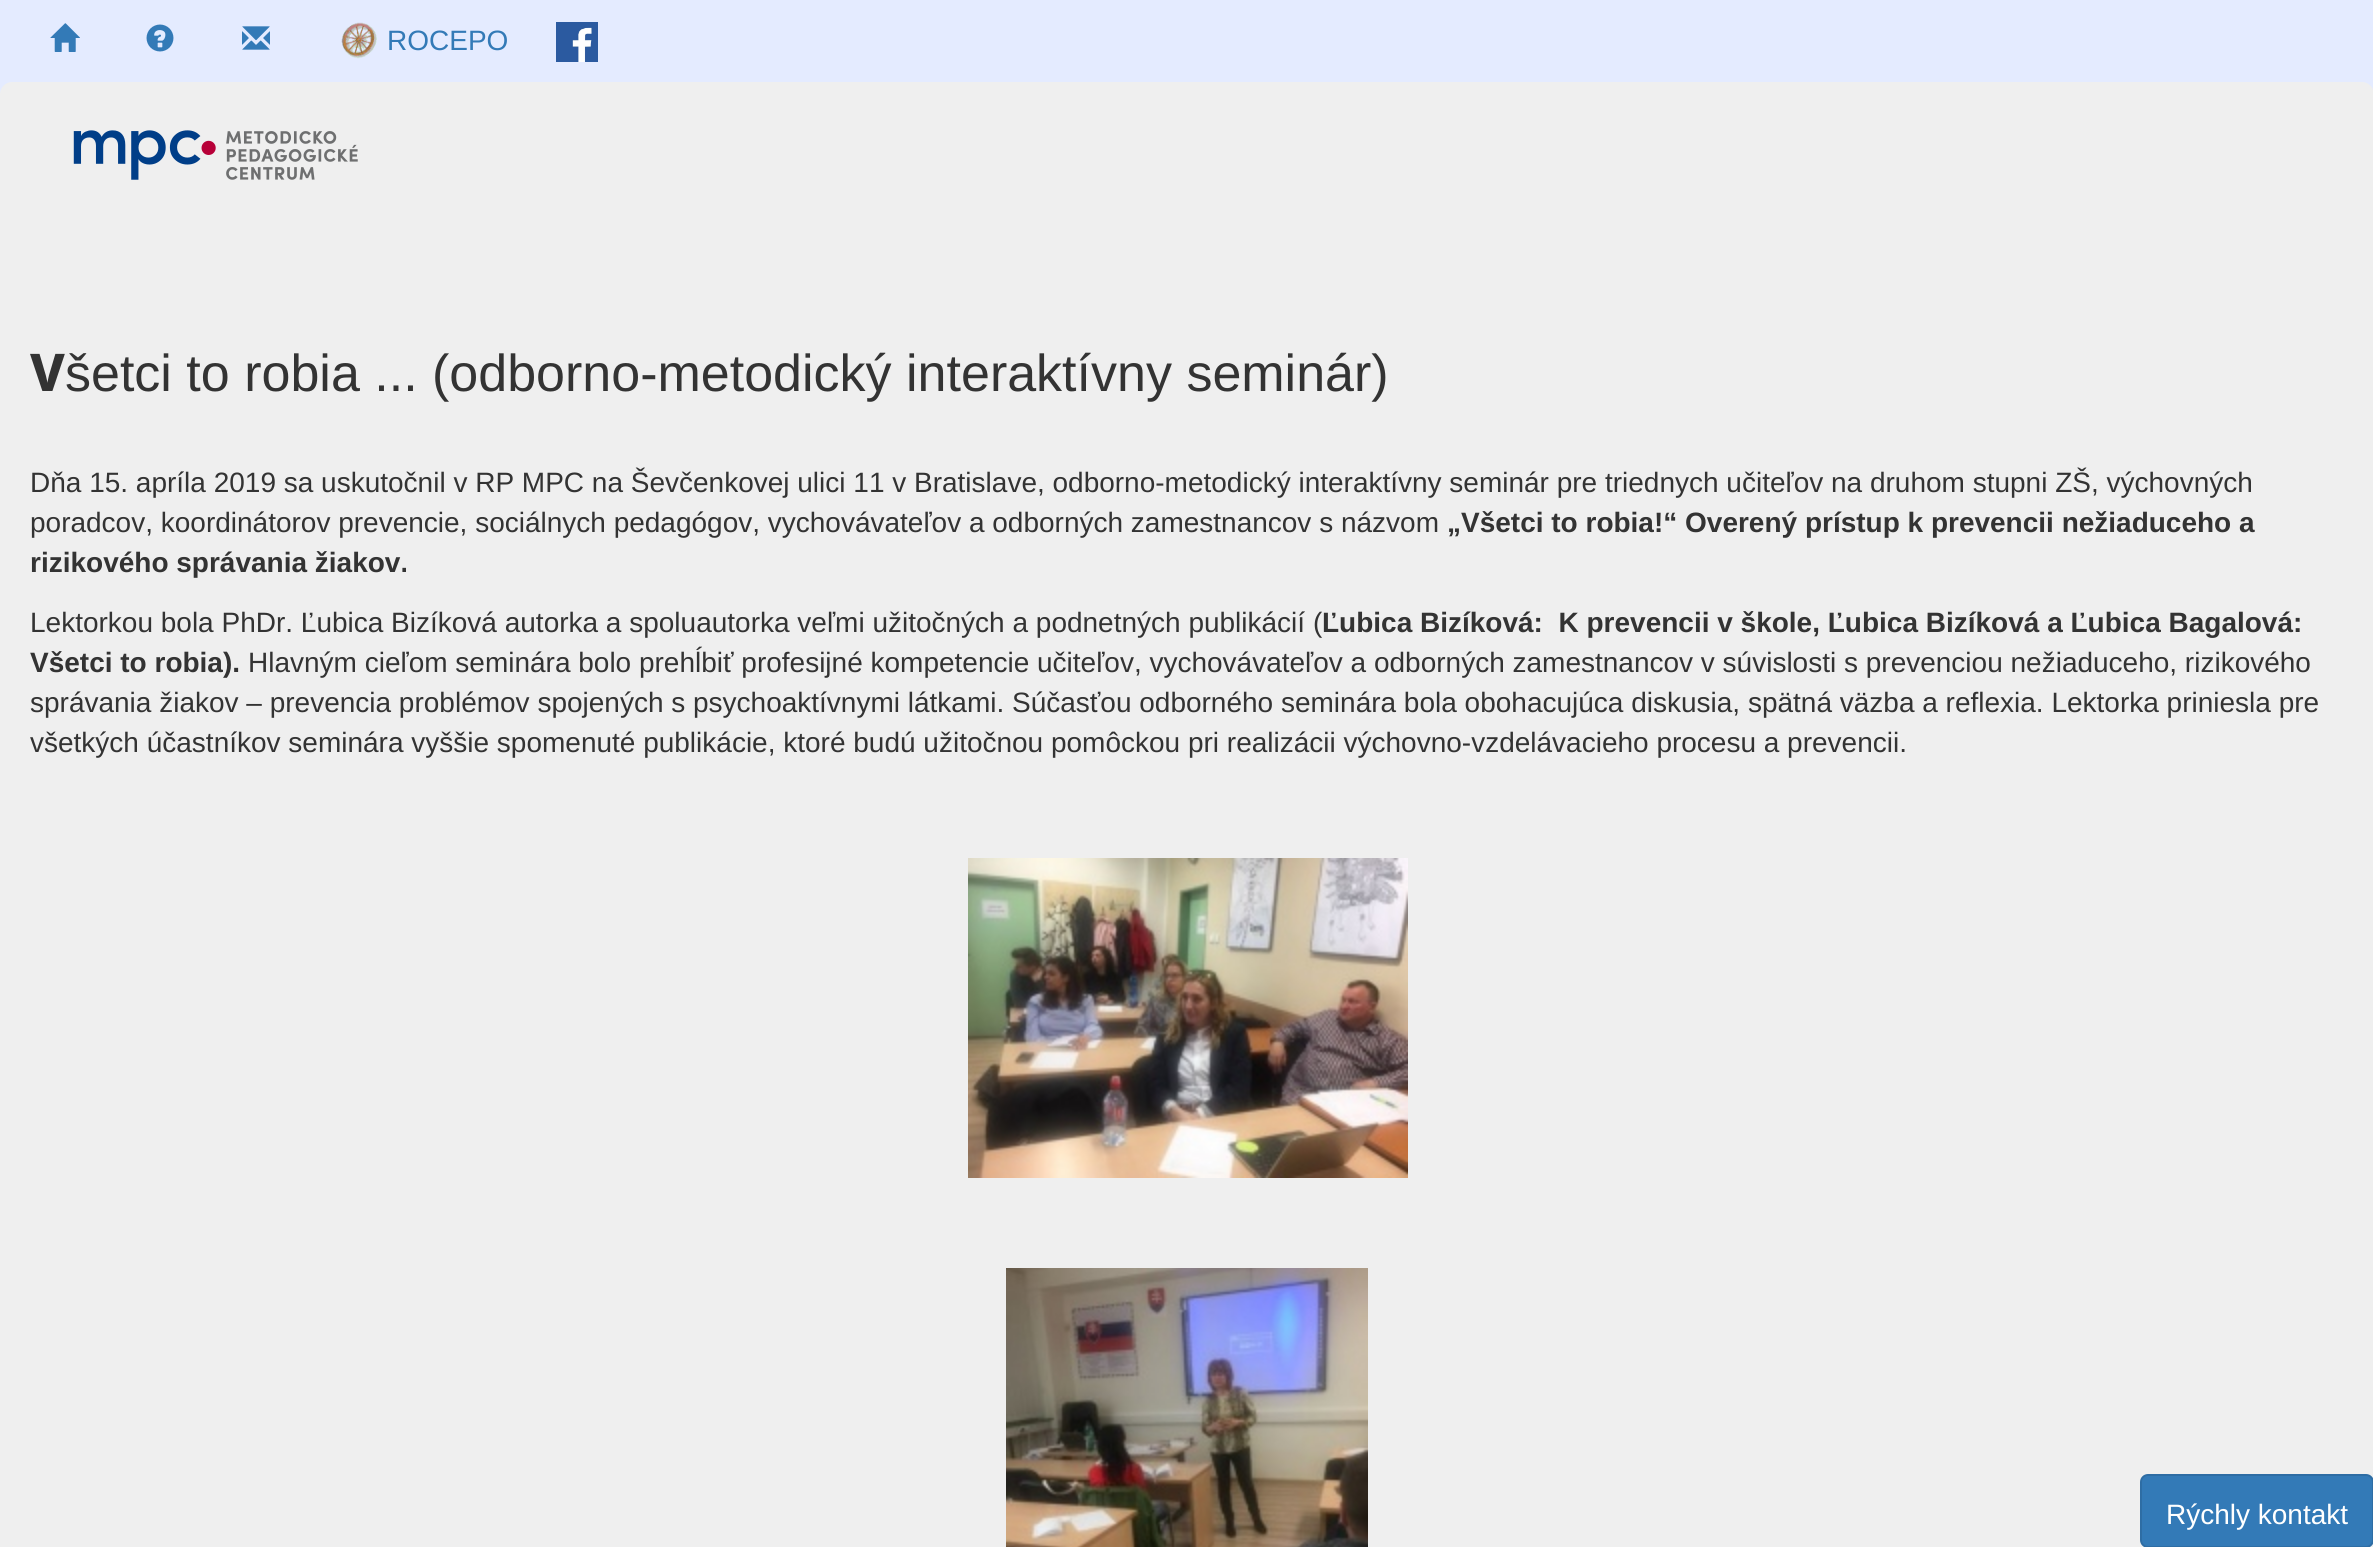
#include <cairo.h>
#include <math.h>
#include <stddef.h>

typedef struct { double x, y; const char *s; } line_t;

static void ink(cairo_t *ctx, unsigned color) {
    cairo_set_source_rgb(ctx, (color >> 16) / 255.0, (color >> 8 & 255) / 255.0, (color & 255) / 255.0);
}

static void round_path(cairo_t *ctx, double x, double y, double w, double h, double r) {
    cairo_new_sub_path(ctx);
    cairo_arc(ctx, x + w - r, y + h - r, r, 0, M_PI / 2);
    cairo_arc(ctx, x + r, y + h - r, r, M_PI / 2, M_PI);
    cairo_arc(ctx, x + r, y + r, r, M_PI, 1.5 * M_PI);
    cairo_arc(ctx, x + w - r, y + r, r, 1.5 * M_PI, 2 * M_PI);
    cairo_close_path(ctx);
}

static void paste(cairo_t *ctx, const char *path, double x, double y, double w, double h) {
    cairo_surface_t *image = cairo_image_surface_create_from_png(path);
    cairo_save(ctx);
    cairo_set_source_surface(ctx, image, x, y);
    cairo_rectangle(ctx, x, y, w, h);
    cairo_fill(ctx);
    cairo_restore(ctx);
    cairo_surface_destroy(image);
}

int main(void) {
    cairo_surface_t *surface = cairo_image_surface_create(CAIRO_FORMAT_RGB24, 2373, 1547);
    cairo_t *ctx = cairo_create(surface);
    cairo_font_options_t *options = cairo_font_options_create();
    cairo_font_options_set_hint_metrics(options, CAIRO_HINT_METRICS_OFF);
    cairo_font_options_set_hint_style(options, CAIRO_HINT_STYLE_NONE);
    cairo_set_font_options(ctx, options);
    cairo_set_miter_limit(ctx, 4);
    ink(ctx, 0xE4EBFF);
    cairo_paint(ctx);
    paste(ctx, "media/1.png", 50, 23, 30, 29);
    paste(ctx, "media/2.png", 146, 24, 28, 28);
    paste(ctx, "media/3.png", 242, 26, 28, 24);
    paste(ctx, "media/4.png", 341, 22, 36, 37);
    cairo_select_font_face(ctx, "Liberation Sans", CAIRO_FONT_SLANT_NORMAL, CAIRO_FONT_WEIGHT_NORMAL);
    cairo_set_font_size(ctx, 28);
    ink(ctx, 0x337AB7);
    cairo_move_to(ctx, 387, 50);
    cairo_show_text(ctx, "ROCEPO");
    paste(ctx, "media/5.png", 556, 22, 42, 40);
    ink(ctx, 0xEFEFEF);
    cairo_new_path(ctx);
    cairo_move_to(ctx, 12, 82);
    cairo_line_to(ctx, 2362, 82);
    cairo_curve_to(ctx, 2368.5, 82, 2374, 87.5, 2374, 94);
    cairo_line_to(ctx, 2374, 344);
    cairo_line_to(ctx, 0, 344);
    cairo_line_to(ctx, 0, 94);
    cairo_curve_to(ctx, 0, 87.5, 5.5, 82, 12, 82);
    cairo_close_path(ctx);
    cairo_fill(ctx);
    paste(ctx, "media/6.png", 73, 130, 285, 50);
    cairo_rectangle(ctx, 0, 344, 2373, 1203);
    cairo_fill(ctx);
    cairo_select_font_face(ctx, "Noto Sans ExtraBold", CAIRO_FONT_SLANT_NORMAL, CAIRO_FONT_WEIGHT_NORMAL);
    cairo_set_font_size(ctx, 52);
    ink(ctx, 0x333333);
    cairo_move_to(ctx, 30, 391);
    cairo_show_text(ctx, "V");
    cairo_select_font_face(ctx, "Liberation Sans", CAIRO_FONT_SLANT_NORMAL, CAIRO_FONT_WEIGHT_NORMAL);
    cairo_move_to(ctx, 65, 391);
    cairo_show_text(ctx, "šetci to robia ... (odborno-metodický interaktívny seminár)");
    cairo_set_font_size(ctx, 28);
    cairo_move_to(ctx, 30, 492);
    cairo_show_text(ctx, "Dňa 15. apríla 2019 sa uskutočnil v RP MPC na Ševčenkovej ulici 11 v Bratislave, odborno-metodický interaktívny seminár pre triednych učiteľov na druhom stupni ZŠ, výchovných");
    cairo_move_to(ctx, 30, 532);
    cairo_show_text(ctx, "poradcov, koordinátorov prevencie, sociálnych pedagógov, vychovávateľov a odborných zamestnancov s názvom");
    cairo_select_font_face(ctx, "Liberation Sans", CAIRO_FONT_SLANT_NORMAL, CAIRO_FONT_WEIGHT_BOLD);
    cairo_move_to(ctx, 1447, 532);
    cairo_show_text(ctx, "„Všetci to robia!“ Overený prístup k prevencii nežiaduceho a");
    cairo_move_to(ctx, 30, 572);
    cairo_show_text(ctx, "rizikového správania žiakov.");
    cairo_select_font_face(ctx, "Liberation Sans", CAIRO_FONT_SLANT_NORMAL, CAIRO_FONT_WEIGHT_NORMAL);
    cairo_move_to(ctx, 30, 632);
    cairo_show_text(ctx, "Lektorkou bola PhDr. Ľubica Bizíková autorka a spoluautorka veľmi užitočných a podnetných publikácií (");
    cairo_select_font_face(ctx, "Liberation Sans", CAIRO_FONT_SLANT_NORMAL, CAIRO_FONT_WEIGHT_BOLD);
    cairo_move_to(ctx, 1322, 632);
    cairo_show_text(ctx, "Ľubica Bizíková:  K prevencii v škole, Ľubica Bizíková a Ľubica Bagalová:");
    cairo_move_to(ctx, 30, 672);
    cairo_show_text(ctx, "Všetci to robia).");
    cairo_select_font_face(ctx, "Liberation Sans", CAIRO_FONT_SLANT_NORMAL, CAIRO_FONT_WEIGHT_NORMAL);
    {
        static const line_t items[] = {
            {248, 672, "Hlavným cieľom seminára bolo prehĺbiť profesijné kompetencie učiteľov, vychovávateľov a odborných zamestnancov v súvislosti s prevenciou nežiaduceho, rizikového"},
            {30, 712, "správania žiakov – prevencia problémov spojených s psychoaktívnymi látkami. Súčasťou odborného seminára bola obohacujúca diskusia, spätná väzba a reflexia. Lektorka priniesla pre"},
            {30, 752, "všetkých účastníkov seminára vyššie spomenuté publikácie, ktoré budú užitočnou pomôckou pri realizácii výchovno-vzdelávacieho procesu a prevencii."},
        };
        for (size_t i = 0; i < sizeof items / sizeof *items; i++) {
            cairo_move_to(ctx, items[i].x, items[i].y);
            cairo_show_text(ctx, items[i].s);
        }
    }
    paste(ctx, "media/7.png", 968, 858, 440, 320);
    paste(ctx, "media/8.png", 1006, 1268, 362, 279);
    ink(ctx, 0x337AB7);
    round_path(ctx, 2141, 1475, 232, 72, 7);
    cairo_fill_preserve(ctx);
    ink(ctx, 0x2E6DA4);
    cairo_stroke(ctx);
    ink(ctx, 0xFFFFFF);
    cairo_move_to(ctx, 2166, 1524);
    cairo_show_text(ctx, "Rýchly kontakt");
    cairo_surface_write_to_png(surface, "image.png");
    cairo_font_options_destroy(options);
    cairo_destroy(ctx);
    cairo_surface_destroy(surface);
    return 0;
}
